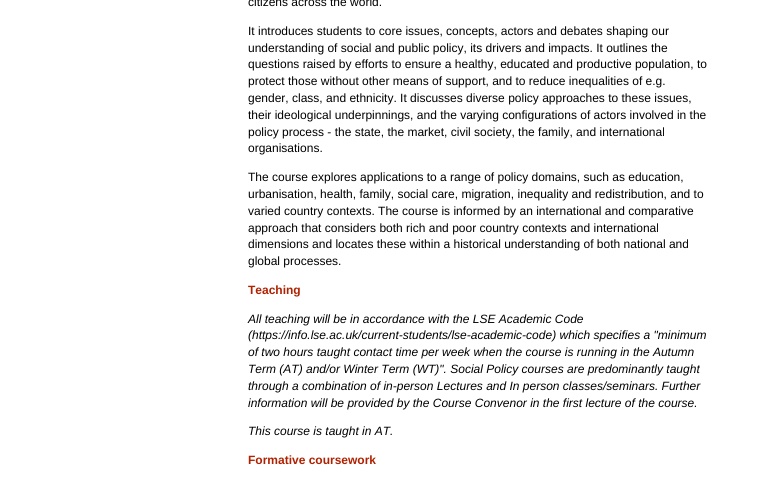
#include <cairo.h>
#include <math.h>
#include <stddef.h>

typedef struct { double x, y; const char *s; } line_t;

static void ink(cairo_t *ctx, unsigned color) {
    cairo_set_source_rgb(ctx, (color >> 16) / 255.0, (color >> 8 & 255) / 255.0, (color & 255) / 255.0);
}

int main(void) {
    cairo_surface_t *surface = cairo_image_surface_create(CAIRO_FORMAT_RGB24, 759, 477);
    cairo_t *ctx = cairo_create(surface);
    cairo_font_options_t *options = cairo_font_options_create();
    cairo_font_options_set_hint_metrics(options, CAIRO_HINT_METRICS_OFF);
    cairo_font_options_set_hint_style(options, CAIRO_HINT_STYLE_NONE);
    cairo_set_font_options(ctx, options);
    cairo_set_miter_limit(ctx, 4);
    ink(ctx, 0xFFFFFF);
    cairo_paint(ctx);
    cairo_select_font_face(ctx, "Liberation Sans", CAIRO_FONT_SLANT_NORMAL, CAIRO_FONT_WEIGHT_NORMAL);
    cairo_set_font_size(ctx, 12);
    ink(ctx, 0x000000);
    {
        static const line_t items[] = {
            {248, 6, "citizens across the world."},
            {248, 35, "It introduces students to core issues, concepts, actors and debates shaping our"},
            {248, 52, "understanding of social and public policy, its drivers and impacts. It outlines the"},
            {248, 68, "questions raised by efforts to ensure a healthy, educated and productive population, to"},
            {248, 85, "protect those without other means of support, and to reduce inequalities of e.g."},
            {248, 102, "gender, class, and ethnicity. It discusses diverse policy approaches to these issues,"},
            {248, 119, "their ideological underpinnings, and the varying configurations of actors involved in the"},
            {248, 136, "policy process - the state, the market, civil society, the family, and international"},
            {248, 152, "organisations."},
            {248, 181, "The course explores applications to a range of policy domains, such as education,"},
            {248, 198, "urbanisation, health, family, social care, migration, inequality and redistribution, and to"},
            {248, 215, "varied country contexts. The course is informed by an international and comparative"},
            {248, 232, "approach that considers both rich and poor country contexts and international"},
            {248, 248, "dimensions and locates these within a historical understanding of both national and"},
            {248, 265, "global processes."},
        };
        for (size_t i = 0; i < sizeof items / sizeof *items; i++) {
            cairo_move_to(ctx, items[i].x, items[i].y);
            cairo_show_text(ctx, items[i].s);
        }
    }
    cairo_select_font_face(ctx, "Liberation Sans", CAIRO_FONT_SLANT_NORMAL, CAIRO_FONT_WEIGHT_BOLD);
    ink(ctx, 0xB02101);
    cairo_move_to(ctx, 248, 294);
    cairo_show_text(ctx, "Teaching");
    cairo_select_font_face(ctx, "Liberation Sans", CAIRO_FONT_SLANT_ITALIC, CAIRO_FONT_WEIGHT_NORMAL);
    ink(ctx, 0x000000);
    {
        static const line_t items[] = {
            {248, 323, "All teaching will be in accordance with the LSE Academic Code"},
            {248, 339, "(https://info.lse.ac.uk/current-students/lse-academic-code) which specifies a \"minimum"},
            {248, 356, "of two hours taught contact time per week when the course is running in the Autumn"},
            {248, 373, "Term (AT) and/or Winter Term (WT)\". Social Policy courses are predominantly taught"},
            {248, 390, "through a combination of in-person Lectures and In person classes/seminars. Further"},
            {248, 407, "information will be provided by the Course Convenor in the first lecture of the course."},
            {248, 435, "This course is taught in AT."},
        };
        for (size_t i = 0; i < sizeof items / sizeof *items; i++) {
            cairo_move_to(ctx, items[i].x, items[i].y);
            cairo_show_text(ctx, items[i].s);
        }
    }
    cairo_select_font_face(ctx, "Liberation Sans", CAIRO_FONT_SLANT_NORMAL, CAIRO_FONT_WEIGHT_BOLD);
    ink(ctx, 0xB02101);
    cairo_move_to(ctx, 248, 464);
    cairo_show_text(ctx, "Formative coursework");
    cairo_surface_write_to_png(surface, "image.png");
    cairo_font_options_destroy(options);
    cairo_destroy(ctx);
    cairo_surface_destroy(surface);
    return 0;
}
